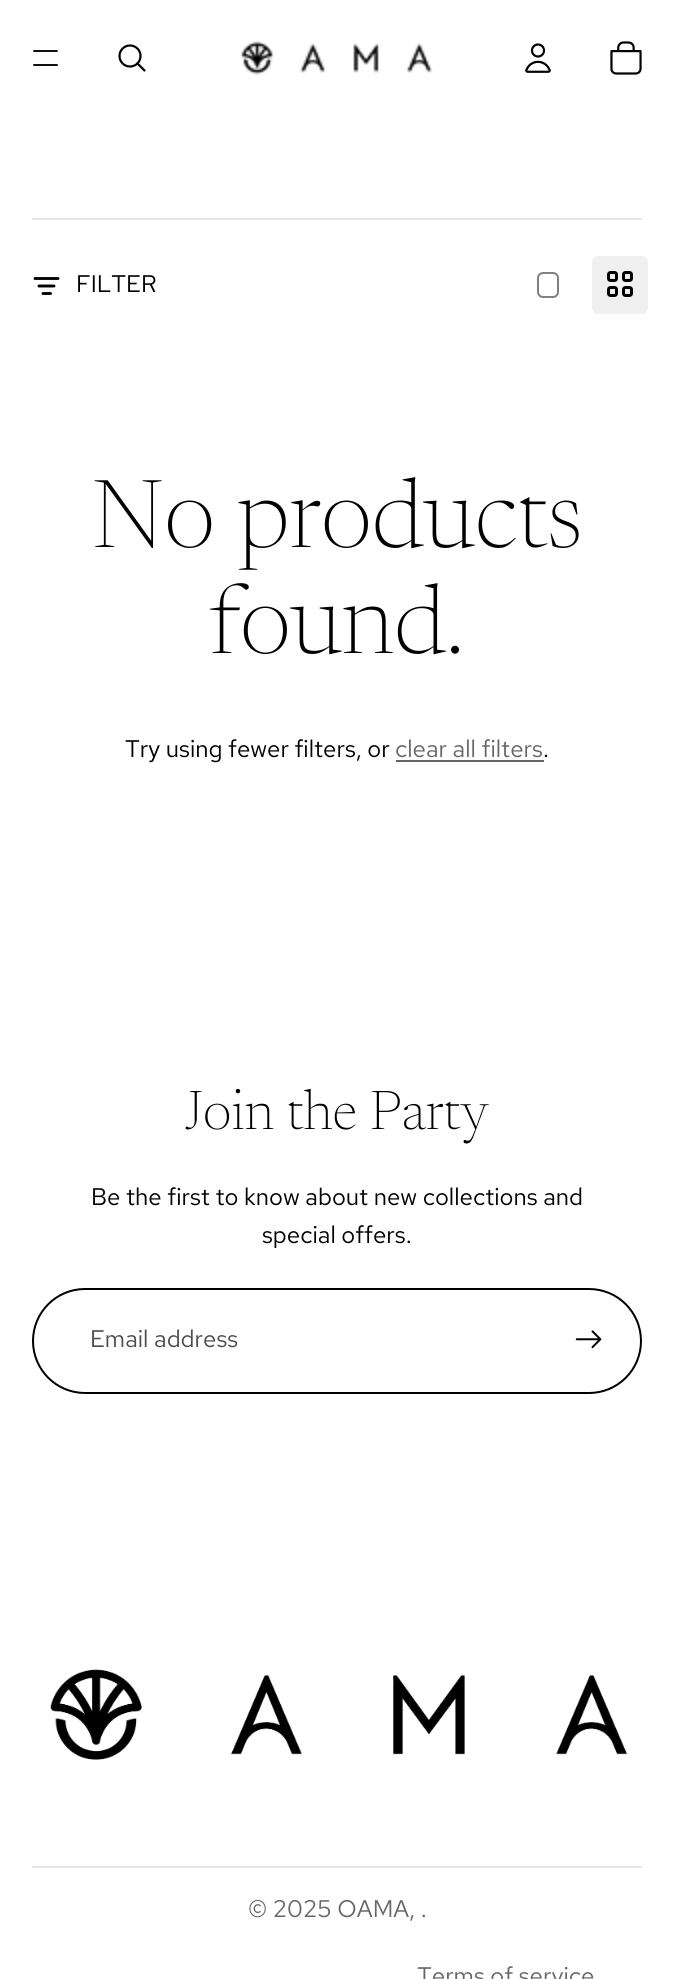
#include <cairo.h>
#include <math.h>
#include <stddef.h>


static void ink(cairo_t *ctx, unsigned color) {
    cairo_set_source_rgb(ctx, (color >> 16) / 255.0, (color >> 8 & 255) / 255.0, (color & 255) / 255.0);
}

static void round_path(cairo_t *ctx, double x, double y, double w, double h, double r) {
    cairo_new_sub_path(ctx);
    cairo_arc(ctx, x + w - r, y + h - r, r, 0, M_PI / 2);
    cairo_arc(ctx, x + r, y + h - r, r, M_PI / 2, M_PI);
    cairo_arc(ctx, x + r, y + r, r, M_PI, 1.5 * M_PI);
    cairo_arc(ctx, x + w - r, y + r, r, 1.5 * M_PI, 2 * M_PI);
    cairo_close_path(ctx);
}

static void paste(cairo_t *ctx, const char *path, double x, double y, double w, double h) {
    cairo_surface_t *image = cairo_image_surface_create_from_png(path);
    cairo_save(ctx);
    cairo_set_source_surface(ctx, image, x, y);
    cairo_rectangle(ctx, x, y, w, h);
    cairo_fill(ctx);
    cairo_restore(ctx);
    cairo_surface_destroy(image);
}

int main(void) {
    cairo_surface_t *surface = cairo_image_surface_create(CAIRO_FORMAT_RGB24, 674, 1979);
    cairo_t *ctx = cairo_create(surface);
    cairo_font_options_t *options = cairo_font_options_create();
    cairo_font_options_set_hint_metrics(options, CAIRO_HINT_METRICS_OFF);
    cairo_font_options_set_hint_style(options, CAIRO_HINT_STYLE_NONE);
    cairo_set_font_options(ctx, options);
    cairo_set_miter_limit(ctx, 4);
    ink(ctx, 0xFFFFFF);
    cairo_paint(ctx);
    cairo_new_path(ctx);
    cairo_move_to(ctx, 34, 51);
    cairo_line_to(ctx, 57, 51);
    cairo_move_to(ctx, 34, 65);
    cairo_line_to(ctx, 57, 65);
    ink(ctx, 0x000000);
    cairo_set_line_width(ctx, 1.9);
    cairo_set_line_cap(ctx, CAIRO_LINE_CAP_ROUND);
    cairo_stroke(ctx);
    cairo_arc(ctx, 130, 56, 10.5, 0, 2 * M_PI);
    cairo_set_line_width(ctx, 2.2);
    cairo_set_line_cap(ctx, CAIRO_LINE_CAP_BUTT);
    cairo_stroke(ctx);
    cairo_new_path(ctx);
    cairo_move_to(ctx, 137.5, 63.5);
    cairo_line_to(ctx, 144.5, 70.5);
    cairo_set_line_cap(ctx, CAIRO_LINE_CAP_ROUND);
    cairo_set_line_join(ctx, CAIRO_LINE_JOIN_ROUND);
    cairo_stroke(ctx);
    paste(ctx, "media/1.png", 241, 41, 192, 34);
    paste(ctx, "media/2.png", 525, 43, 26, 30);
    paste(ctx, "media/3.png", 610, 41, 32, 34);
    ink(ctx, 0xE6E6E6);
    cairo_rectangle(ctx, 32, 218, 610, 2);
    cairo_fill(ctx);
    cairo_new_path(ctx);
    cairo_move_to(ctx, 58, 278.5);
    cairo_line_to(ctx, 35, 278.5);
    cairo_move_to(ctx, 54, 286);
    cairo_line_to(ctx, 39, 286);
    cairo_move_to(ctx, 43, 293.5);
    cairo_line_to(ctx, 50.5, 293.5);
    ink(ctx, 0x000000);
    cairo_set_line_width(ctx, 2.9);
    cairo_set_line_join(ctx, CAIRO_LINE_JOIN_MITER);
    cairo_stroke(ctx);
    cairo_select_font_face(ctx, "Red Hat Text", CAIRO_FONT_SLANT_NORMAL, CAIRO_FONT_WEIGHT_NORMAL);
    cairo_set_font_size(ctx, 24);
    cairo_move_to(ctx, 76, 292);
    cairo_show_text(ctx, "FILTER");
    round_path(ctx, 538, 273, 20, 24, 5);
    ink(ctx, 0x808080);
    cairo_set_line_width(ctx, 2);
    cairo_set_line_cap(ctx, CAIRO_LINE_CAP_BUTT);
    cairo_stroke(ctx);
    ink(ctx, 0xF0F0F0);
    round_path(ctx, 592, 256, 56, 58, 6);
    cairo_fill(ctx);
    paste(ctx, "media/4.png", 607, 271, 26, 26);
    cairo_select_font_face(ctx, "Newsreader ExtraLight", CAIRO_FONT_SLANT_NORMAL, CAIRO_FONT_WEIGHT_NORMAL);
    cairo_set_font_size(ctx, 96);
    ink(ctx, 0x000000);
    cairo_move_to(ctx, 92, 547);
    cairo_show_text(ctx, "No products");
    cairo_move_to(ctx, 209, 653);
    cairo_show_text(ctx, "found.");
    cairo_select_font_face(ctx, "Red Hat Text", CAIRO_FONT_SLANT_NORMAL, CAIRO_FONT_WEIGHT_NORMAL);
    cairo_set_font_size(ctx, 24);
    cairo_move_to(ctx, 125, 757);
    cairo_show_text(ctx, "Try using fewer filters, or");
    ink(ctx, 0x666666);
    cairo_move_to(ctx, 395, 757);
    cairo_show_text(ctx, "clear all filters");
    cairo_rectangle(ctx, 396, 760, 148, 2);
    cairo_fill(ctx);
    ink(ctx, 0x000000);
    cairo_move_to(ctx, 543, 757);
    cairo_show_text(ctx, ".");
    cairo_select_font_face(ctx, "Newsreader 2 ExtraLight", CAIRO_FONT_SLANT_NORMAL, CAIRO_FONT_WEIGHT_NORMAL);
    cairo_set_font_size(ctx, 56);
    cairo_move_to(ctx, 185, 1129);
    cairo_show_text(ctx, "Join the Party");
    cairo_select_font_face(ctx, "Red Hat Text", CAIRO_FONT_SLANT_NORMAL, CAIRO_FONT_WEIGHT_NORMAL);
    cairo_set_font_size(ctx, 24);
    cairo_move_to(ctx, 91, 1205);
    cairo_show_text(ctx, "Be the first to know about new collections and");
    cairo_move_to(ctx, 262, 1243);
    cairo_show_text(ctx, "special offers.");
    round_path(ctx, 33, 1289, 608, 104, 52);
    cairo_stroke(ctx);
    ink(ctx, 0x4D4D4D);
    cairo_move_to(ctx, 90, 1347);
    cairo_show_text(ctx, "Email address");
    paste(ctx, "media/5.png", 575, 1330, 27, 19);
    paste(ctx, "media/6.png", 50, 1669, 578, 91);
    ink(ctx, 0xE6E6E6);
    cairo_rectangle(ctx, 32, 1866, 610, 2);
    cairo_fill(ctx);
    ink(ctx, 0x666666);
    cairo_move_to(ctx, 248, 1917);
    cairo_show_text(ctx, "© 2025 OAMA, .");
    cairo_move_to(ctx, 417, 1984);
    cairo_show_text(ctx, "Terms of service");
    cairo_surface_write_to_png(surface, "image.png");
    cairo_font_options_destroy(options);
    cairo_destroy(ctx);
    cairo_surface_destroy(surface);
    return 0;
}
